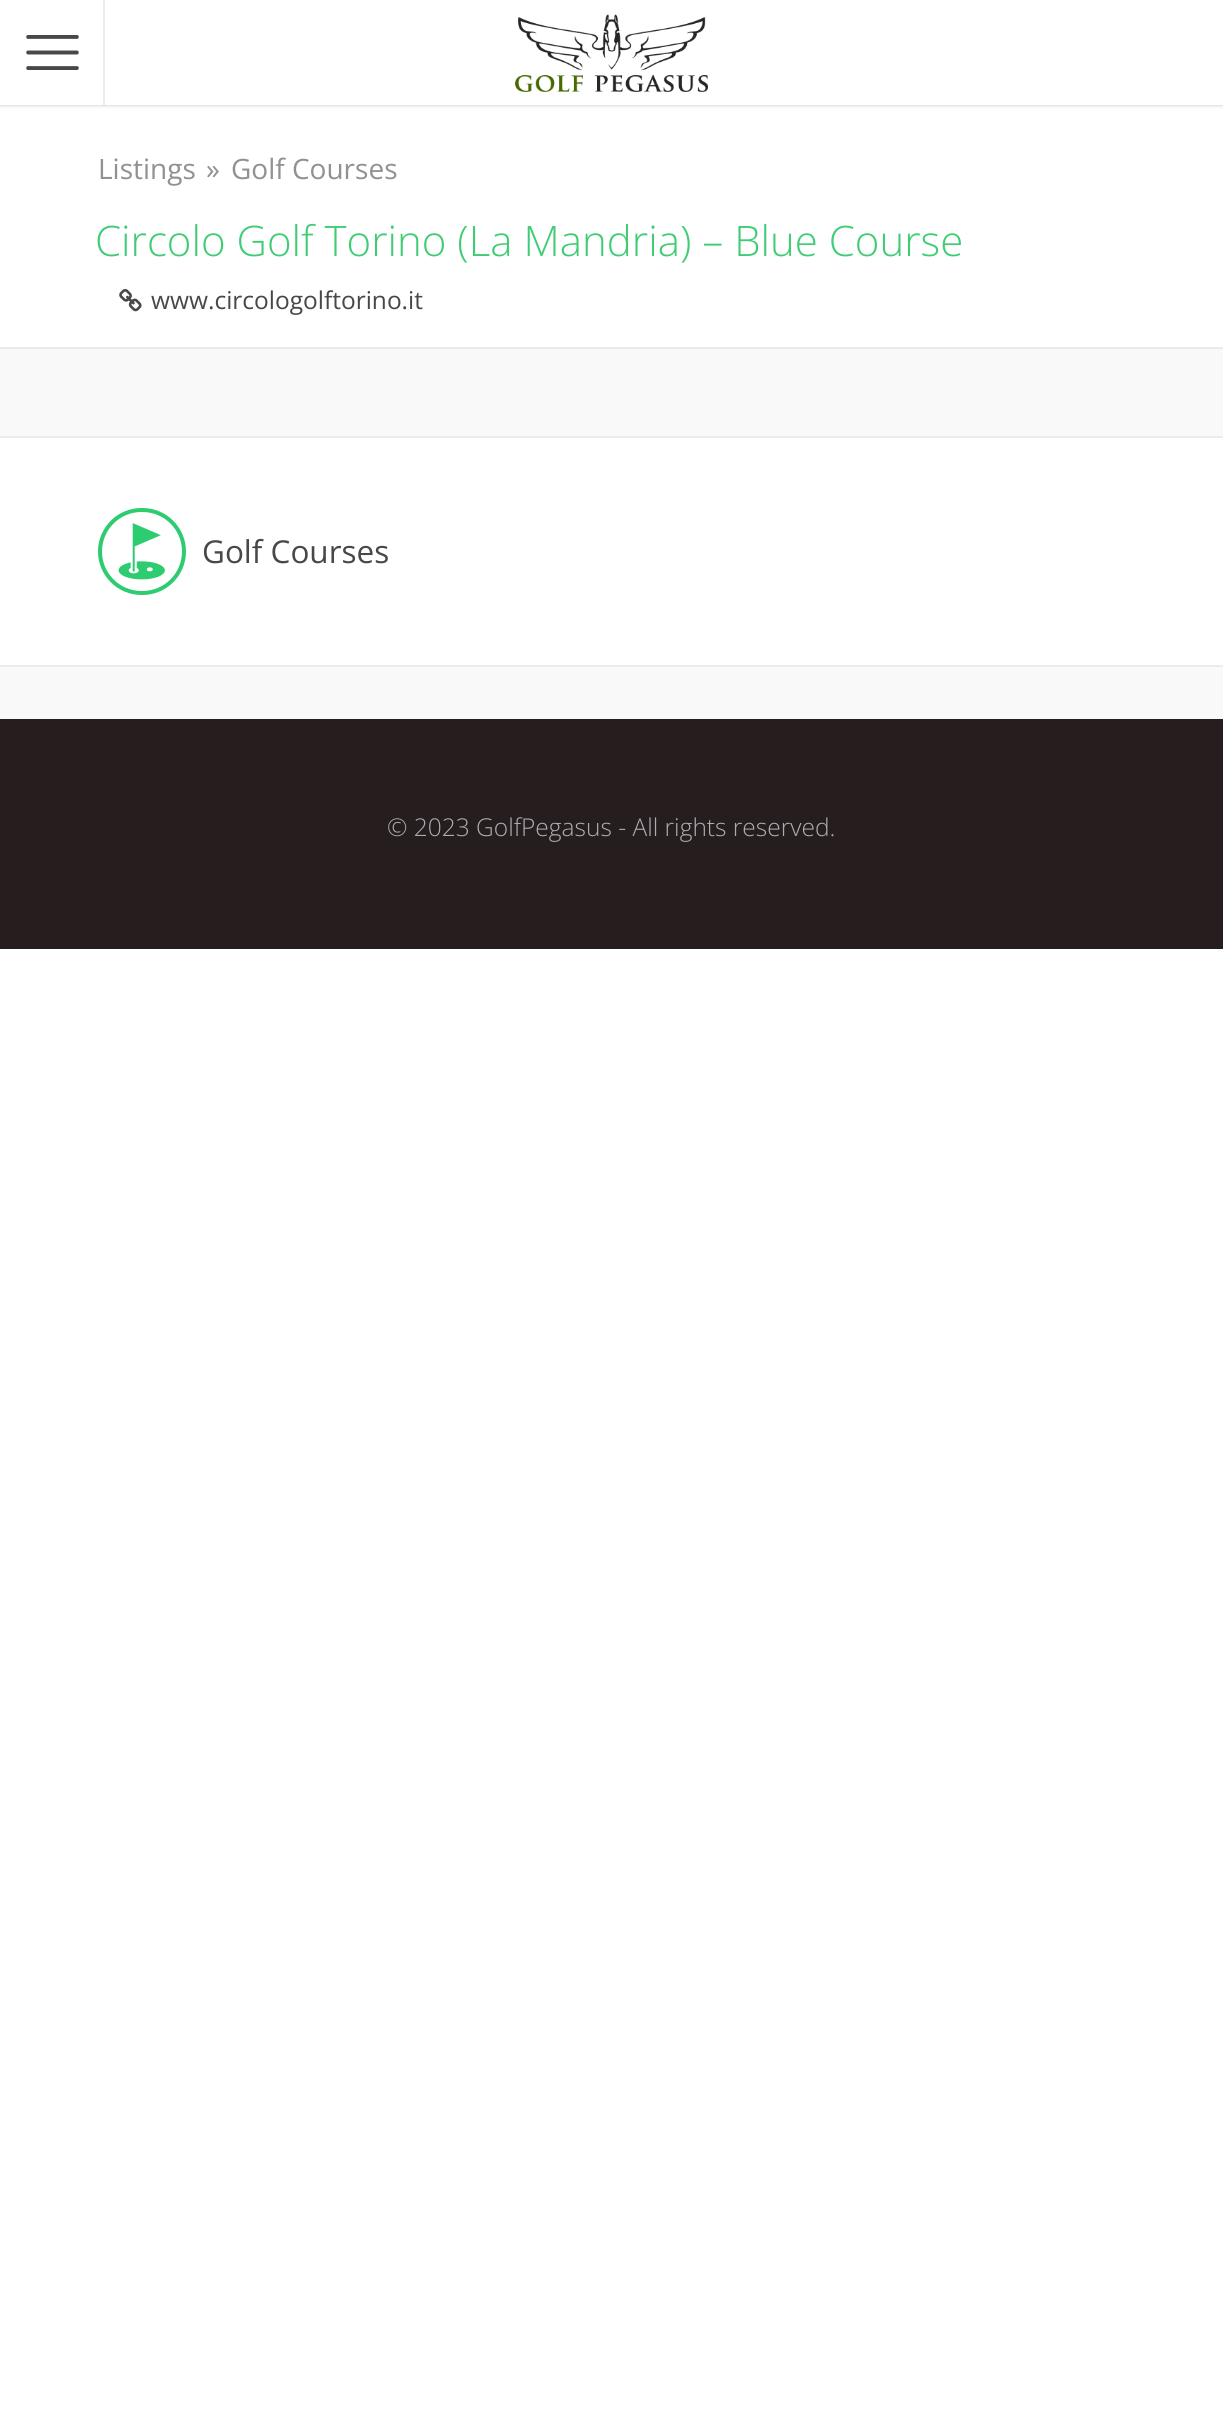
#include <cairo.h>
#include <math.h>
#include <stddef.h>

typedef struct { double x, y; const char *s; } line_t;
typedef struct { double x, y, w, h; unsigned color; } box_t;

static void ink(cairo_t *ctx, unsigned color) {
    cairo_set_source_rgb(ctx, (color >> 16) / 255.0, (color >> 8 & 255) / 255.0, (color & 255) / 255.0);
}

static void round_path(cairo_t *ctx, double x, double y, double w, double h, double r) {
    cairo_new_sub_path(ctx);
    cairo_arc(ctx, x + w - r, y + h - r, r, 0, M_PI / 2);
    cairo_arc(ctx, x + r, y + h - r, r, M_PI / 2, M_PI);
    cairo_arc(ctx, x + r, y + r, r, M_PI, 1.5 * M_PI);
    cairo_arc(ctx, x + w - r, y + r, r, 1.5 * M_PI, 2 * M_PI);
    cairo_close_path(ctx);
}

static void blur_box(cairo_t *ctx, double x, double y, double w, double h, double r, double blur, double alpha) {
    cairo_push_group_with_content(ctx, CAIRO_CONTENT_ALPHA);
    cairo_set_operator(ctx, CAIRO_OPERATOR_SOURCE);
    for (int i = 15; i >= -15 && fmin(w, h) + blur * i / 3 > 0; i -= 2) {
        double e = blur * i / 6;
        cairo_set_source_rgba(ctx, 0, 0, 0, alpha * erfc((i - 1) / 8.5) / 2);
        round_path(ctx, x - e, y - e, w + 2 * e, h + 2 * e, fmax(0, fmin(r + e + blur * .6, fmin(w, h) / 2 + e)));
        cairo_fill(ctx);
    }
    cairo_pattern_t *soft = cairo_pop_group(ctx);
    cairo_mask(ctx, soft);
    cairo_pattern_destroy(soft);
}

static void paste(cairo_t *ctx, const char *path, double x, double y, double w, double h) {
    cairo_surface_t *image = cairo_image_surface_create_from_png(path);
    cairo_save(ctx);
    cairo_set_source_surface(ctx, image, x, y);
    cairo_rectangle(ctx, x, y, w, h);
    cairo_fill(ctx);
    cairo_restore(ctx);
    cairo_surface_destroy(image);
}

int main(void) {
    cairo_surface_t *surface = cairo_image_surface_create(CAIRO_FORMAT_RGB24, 1223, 2432);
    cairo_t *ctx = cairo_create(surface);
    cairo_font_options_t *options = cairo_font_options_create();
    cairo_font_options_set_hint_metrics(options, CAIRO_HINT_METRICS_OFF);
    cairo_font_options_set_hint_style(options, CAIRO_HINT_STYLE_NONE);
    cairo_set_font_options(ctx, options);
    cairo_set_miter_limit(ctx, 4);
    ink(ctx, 0xFFFFFF);
    cairo_paint(ctx);
    ink(ctx, 0xF9F9F9);
    cairo_rectangle(ctx, 0, 349, 1223, 370);
    cairo_fill(ctx);
    ink(ctx, 0xE8E8E8);
    cairo_rectangle(ctx, 0, 348, 1223, 1);
    cairo_fill(ctx);
    ink(ctx, 0x000000);
    blur_box(ctx, 0, 0, 1223, 105, 0, 2, 0.25);
    ink(ctx, 0xFFFFFF);
    cairo_rectangle(ctx, 0, 0, 1223, 105);
    cairo_fill(ctx);
    ink(ctx, 0xECECEC);
    cairo_rectangle(ctx, 103, 0, 2, 105);
    cairo_fill(ctx);
    paste(ctx, "media/1.png", 26, 35, 53, 35);
    paste(ctx, "media/2.png", 515, 14, 193, 78);
    cairo_select_font_face(ctx, "Open Sans", CAIRO_FONT_SLANT_NORMAL, CAIRO_FONT_WEIGHT_NORMAL);
    cairo_set_font_size(ctx, 28);
    ink(ctx, 0x919191);
    {
        static const line_t items[] = {
            {98, 179, "Listings"},
            {206, 179, "»"},
            {231, 179, "Golf Courses"},
        };
        for (size_t i = 0; i < sizeof items / sizeof *items; i++) {
            cairo_move_to(ctx, items[i].x, items[i].y);
            cairo_show_text(ctx, items[i].s);
        }
    }
    cairo_select_font_face(ctx, "Open Sans Light", CAIRO_FONT_SLANT_NORMAL, CAIRO_FONT_WEIGHT_NORMAL);
    cairo_set_font_size(ctx, 42);
    ink(ctx, 0x40CC75);
    cairo_move_to(ctx, 95, 256);
    cairo_show_text(ctx, "Circolo Golf Torino (La Mandria) – Blue Course");
    paste(ctx, "media/3.png", 119, 289, 23, 23);
    cairo_select_font_face(ctx, "Open Sans", CAIRO_FONT_SLANT_NORMAL, CAIRO_FONT_WEIGHT_NORMAL);
    cairo_set_font_size(ctx, 24.5);
    ink(ctx, 0x484848);
    cairo_move_to(ctx, 151, 309);
    cairo_show_text(ctx, "www.circologolftorino.it");
    {
        static const box_t items[] = {
            {0, 347, 1223, 1, 0xEDEDED},
            {0, 438, 1223, 227, 0xFFFFFF},
            {0, 436, 1223, 2, 0xECECEC},
            {0, 665, 1223, 2, 0xECECEC},
        };
        for (size_t i = 0; i < sizeof items / sizeof *items; i++) {
            ink(ctx, items[i].color);
            cairo_rectangle(ctx, items[i].x, items[i].y, items[i].w, items[i].h);
            cairo_fill(ctx);
        }
    }
    round_path(ctx, 100, 510, 84, 83, 41.5);
    ink(ctx, 0x2ECC71);
    cairo_set_line_width(ctx, 4);
    cairo_stroke(ctx);
    paste(ctx, "media/4.png", 118, 523, 47, 57);
    cairo_set_font_size(ctx, 31.5);
    ink(ctx, 0x484848);
    cairo_move_to(ctx, 202, 563);
    cairo_show_text(ctx, "Golf Courses");
    ink(ctx, 0x261E1E);
    cairo_rectangle(ctx, 0, 719, 1223, 230);
    cairo_fill(ctx);
    cairo_select_font_face(ctx, "Open Sans Light", CAIRO_FONT_SLANT_NORMAL, CAIRO_FONT_WEIGHT_NORMAL);
    cairo_set_font_size(ctx, 24.5);
    ink(ctx, 0xADADB2);
    cairo_move_to(ctx, 387, 836);
    cairo_show_text(ctx, "© 2023 GolfPegasus - All rights reserved.");
    cairo_surface_write_to_png(surface, "image.png");
    cairo_font_options_destroy(options);
    cairo_destroy(ctx);
    cairo_surface_destroy(surface);
    return 0;
}
